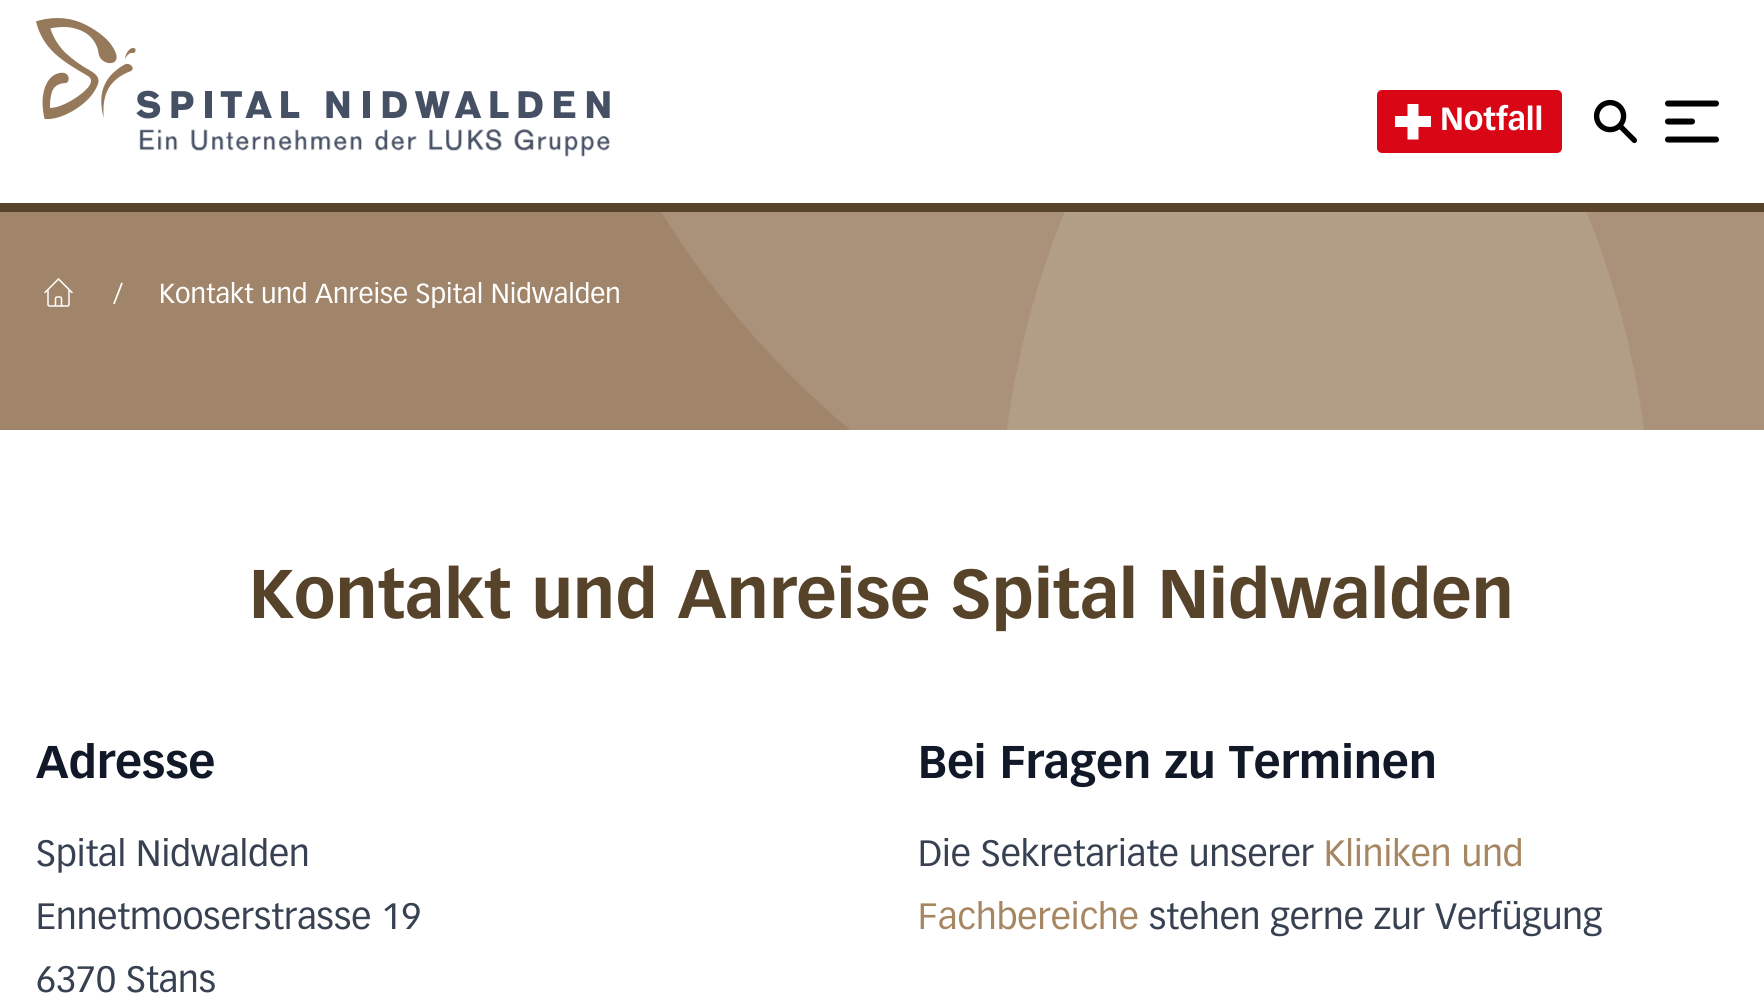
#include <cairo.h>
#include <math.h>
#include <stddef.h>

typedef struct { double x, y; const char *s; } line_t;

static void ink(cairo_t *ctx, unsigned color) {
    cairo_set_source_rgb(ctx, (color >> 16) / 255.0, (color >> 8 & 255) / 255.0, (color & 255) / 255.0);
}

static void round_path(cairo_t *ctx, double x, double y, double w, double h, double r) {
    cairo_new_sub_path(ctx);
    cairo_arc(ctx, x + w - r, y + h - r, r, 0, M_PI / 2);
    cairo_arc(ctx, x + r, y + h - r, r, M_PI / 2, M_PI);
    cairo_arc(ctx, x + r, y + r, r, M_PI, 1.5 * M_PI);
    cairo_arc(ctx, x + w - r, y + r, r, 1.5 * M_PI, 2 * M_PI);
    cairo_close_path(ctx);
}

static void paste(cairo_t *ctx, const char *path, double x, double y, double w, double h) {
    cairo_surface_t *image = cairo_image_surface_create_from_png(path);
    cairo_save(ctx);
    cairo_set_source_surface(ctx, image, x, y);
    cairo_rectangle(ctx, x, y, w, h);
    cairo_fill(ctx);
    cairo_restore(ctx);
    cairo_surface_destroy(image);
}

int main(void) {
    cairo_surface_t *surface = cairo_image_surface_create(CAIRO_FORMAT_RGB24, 1764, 1007);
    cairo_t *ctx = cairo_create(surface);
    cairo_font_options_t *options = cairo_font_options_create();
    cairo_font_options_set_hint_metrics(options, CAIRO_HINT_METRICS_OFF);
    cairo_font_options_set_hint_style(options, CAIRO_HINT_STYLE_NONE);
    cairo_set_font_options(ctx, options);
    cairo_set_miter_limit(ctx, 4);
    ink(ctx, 0xFFFFFF);
    cairo_paint(ctx);
    ink(ctx, 0x96785A);
    cairo_rectangle(ctx, 0, 212, 851, 218);
    cairo_fill(ctx);
    cairo_select_font_face(ctx, "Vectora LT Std", CAIRO_FONT_SLANT_NORMAL, CAIRO_FONT_WEIGHT_BOLD);
    cairo_set_font_size(ctx, 67.5);
    ink(ctx, 0x57432A);
    cairo_move_to(ctx, 249, 618);
    cairo_show_text(ctx, "Kontakt und Anreise Spital Nidwalden");
    cairo_save(ctx);
    cairo_rectangle(ctx, 0, 212, 1764, 218);
    cairo_clip(ctx);
    ink(ctx, 0xA1866B);
    round_path(ctx, 527, -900, 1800, 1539, 900);
    cairo_fill(ctx);
    cairo_set_source_rgba(ctx, 1, 1, 1, 0.1);
    cairo_arc(ctx, 752, 549, 900, 0, 2 * M_PI);
    cairo_fill(ctx);
    cairo_restore(ctx);
    paste(ctx, "media/1.png", 36, 18, 574, 101);
    paste(ctx, "media/2.png", 139, 129, 471, 28);
    cairo_save(ctx);
    cairo_rectangle(ctx, 0, 212, 1764, 218);
    cairo_clip(ctx);
    cairo_set_source_rgba(ctx, 1, 1, 1, 0.1);
    round_path(ctx, 999, -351, 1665, 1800, 900);
    cairo_fill(ctx);
    cairo_restore(ctx);
    ink(ctx, 0xD90716);
    round_path(ctx, 1377, 90, 185, 63, 5);
    cairo_fill(ctx);
    cairo_save(ctx);
    cairo_rectangle(ctx, 1395, 104, 36, 36);
    cairo_clip(ctx);
    ink(ctx, 0xFFFFFF);
    cairo_new_path(ctx);
    cairo_move_to(ctx, 1407.5, 103.5);
    cairo_line_to(ctx, 1407.5, 116);
    cairo_line_to(ctx, 1395, 116);
    cairo_line_to(ctx, 1395, 127);
    cairo_line_to(ctx, 1407.5, 127);
    cairo_line_to(ctx, 1407.5, 139.5);
    cairo_line_to(ctx, 1418.5, 139.5);
    cairo_line_to(ctx, 1418.5, 127);
    cairo_line_to(ctx, 1431, 127);
    cairo_line_to(ctx, 1431, 116);
    cairo_line_to(ctx, 1418.5, 116);
    cairo_line_to(ctx, 1418.5, 103.5);
    cairo_close_path(ctx);
    cairo_fill(ctx);
    cairo_restore(ctx);
    cairo_set_font_size(ctx, 31.5);
    ink(ctx, 0xFFFFFF);
    cairo_move_to(ctx, 1440, 130);
    cairo_show_text(ctx, "Notfall");
    paste(ctx, "media/3.png", 1593, 99, 44, 44);
    cairo_new_path(ctx);
    cairo_move_to(ctx, 1668, 103.5);
    cairo_line_to(ctx, 1716, 103.5);
    cairo_move_to(ctx, 1668, 121.5);
    cairo_line_to(ctx, 1692, 121.5);
    cairo_move_to(ctx, 1668, 139.5);
    cairo_line_to(ctx, 1716, 139.5);
    ink(ctx, 0x000000);
    cairo_set_line_width(ctx, 6);
    cairo_set_line_cap(ctx, CAIRO_LINE_CAP_ROUND);
    cairo_set_line_join(ctx, CAIRO_LINE_JOIN_ROUND);
    cairo_stroke(ctx);
    ink(ctx, 0x57432A);
    cairo_rectangle(ctx, 0, 203, 1764, 9);
    cairo_fill(ctx);
    paste(ctx, "media/4.png", 44, 278, 29, 29);
    cairo_select_font_face(ctx, "Vectora LT Std", CAIRO_FONT_SLANT_NORMAL, CAIRO_FONT_WEIGHT_NORMAL);
    cairo_set_font_size(ctx, 27);
    ink(ctx, 0xFFFFFF);
    cairo_move_to(ctx, 113, 303);
    cairo_show_text(ctx, "/");
    cairo_move_to(ctx, 159, 303);
    cairo_show_text(ctx, "Kontakt und Anreise Spital Nidwalden");
    cairo_select_font_face(ctx, "Vectora LT Std", CAIRO_FONT_SLANT_NORMAL, CAIRO_FONT_WEIGHT_BOLD);
    cairo_set_font_size(ctx, 45);
    ink(ctx, 0x111827);
    cairo_move_to(ctx, 36, 778);
    cairo_show_text(ctx, "Adresse");
    cairo_select_font_face(ctx, "Vectora LT Std", CAIRO_FONT_SLANT_NORMAL, CAIRO_FONT_WEIGHT_NORMAL);
    cairo_set_font_size(ctx, 36);
    ink(ctx, 0x374151);
    {
        static const line_t items[] = {
            {36, 866, "Spital Nidwalden"},
            {36, 929, "Ennetmooserstrasse 19"},
            {36, 992, "6370 Stans"},
        };
        for (size_t i = 0; i < sizeof items / sizeof *items; i++) {
            cairo_move_to(ctx, items[i].x, items[i].y);
            cairo_show_text(ctx, items[i].s);
        }
    }
    cairo_select_font_face(ctx, "Vectora LT Std", CAIRO_FONT_SLANT_NORMAL, CAIRO_FONT_WEIGHT_BOLD);
    cairo_set_font_size(ctx, 45);
    ink(ctx, 0x111827);
    cairo_move_to(ctx, 918, 778);
    cairo_show_text(ctx, "Bei Fragen zu Terminen");
    cairo_select_font_face(ctx, "Vectora LT Std", CAIRO_FONT_SLANT_NORMAL, CAIRO_FONT_WEIGHT_NORMAL);
    cairo_set_font_size(ctx, 36);
    ink(ctx, 0x374151);
    cairo_move_to(ctx, 918, 866);
    cairo_show_text(ctx, "Die Sekretariate unserer");
    ink(ctx, 0xA78662);
    cairo_move_to(ctx, 1324, 866);
    cairo_show_text(ctx, "Kliniken und");
    cairo_move_to(ctx, 918, 929);
    cairo_show_text(ctx, "Fachbereiche");
    ink(ctx, 0x374151);
    cairo_move_to(ctx, 1149, 929);
    cairo_show_text(ctx, "stehen gerne zur Verfügung");
    cairo_surface_write_to_png(surface, "image.png");
    cairo_font_options_destroy(options);
    cairo_destroy(ctx);
    cairo_surface_destroy(surface);
    return 0;
}
